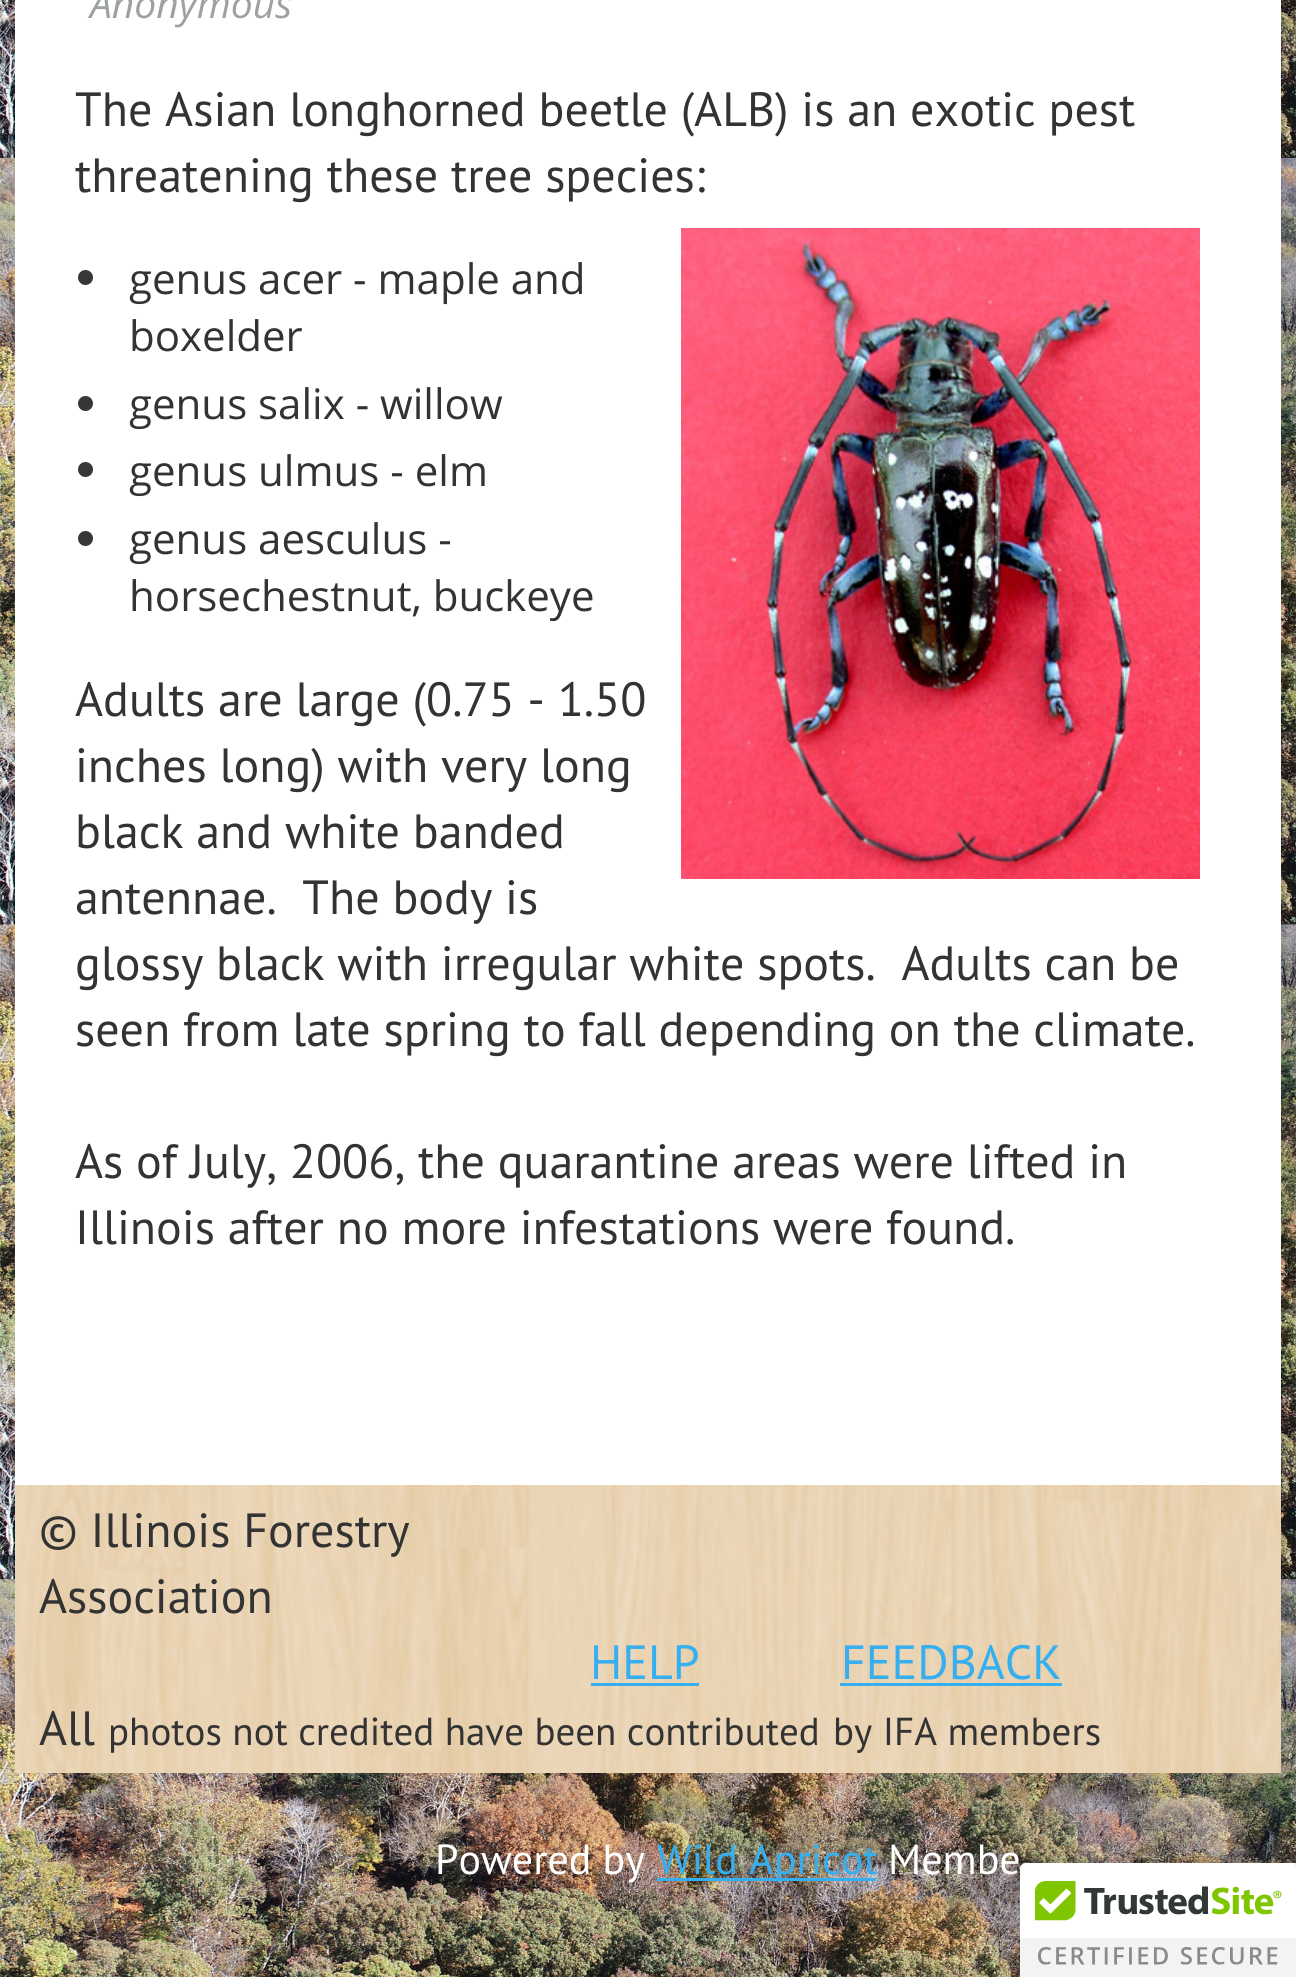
#include <cairo.h>
#include <math.h>
#include <stddef.h>

typedef struct { double x, y; const char *s; } line_t;

static void ink(cairo_t *ctx, unsigned color) {
    cairo_set_source_rgb(ctx, (color >> 16) / 255.0, (color >> 8 & 255) / 255.0, (color & 255) / 255.0);
}

static void round_path(cairo_t *ctx, double x, double y, double w, double h, double r) {
    cairo_new_sub_path(ctx);
    cairo_arc(ctx, x + w - r, y + h - r, r, 0, M_PI / 2);
    cairo_arc(ctx, x + r, y + h - r, r, M_PI / 2, M_PI);
    cairo_arc(ctx, x + r, y + r, r, M_PI, 1.5 * M_PI);
    cairo_arc(ctx, x + w - r, y + r, r, 1.5 * M_PI, 2 * M_PI);
    cairo_close_path(ctx);
}

static void blur_box(cairo_t *ctx, double x, double y, double w, double h, double r, double blur, double alpha) {
    cairo_push_group_with_content(ctx, CAIRO_CONTENT_ALPHA);
    cairo_set_operator(ctx, CAIRO_OPERATOR_SOURCE);
    for (int i = 15; i >= -15 && fmin(w, h) + blur * i / 3 > 0; i -= 2) {
        double e = blur * i / 6;
        cairo_set_source_rgba(ctx, 0, 0, 0, alpha * erfc((i - 1) / 8.5) / 2);
        round_path(ctx, x - e, y - e, w + 2 * e, h + 2 * e, fmax(0, fmin(r + e + blur * .6, fmin(w, h) / 2 + e)));
        cairo_fill(ctx);
    }
    cairo_pattern_t *soft = cairo_pop_group(ctx);
    cairo_mask(ctx, soft);
    cairo_pattern_destroy(soft);
}

static void paste(cairo_t *ctx, const char *path, double x, double y, double w, double h) {
    cairo_surface_t *image = cairo_image_surface_create_from_png(path);
    cairo_save(ctx);
    cairo_set_source_surface(ctx, image, x, y);
    cairo_rectangle(ctx, x, y, w, h);
    cairo_fill(ctx);
    cairo_restore(ctx);
    cairo_surface_destroy(image);
}

int main(void) {
    cairo_surface_t *surface = cairo_image_surface_create(CAIRO_FORMAT_RGB24, 1296, 1977);
    cairo_t *ctx = cairo_create(surface);
    cairo_font_options_t *options = cairo_font_options_create();
    cairo_font_options_set_hint_metrics(options, CAIRO_HINT_METRICS_OFF);
    cairo_font_options_set_hint_style(options, CAIRO_HINT_STYLE_NONE);
    cairo_set_font_options(ctx, options);
    cairo_set_miter_limit(ctx, 4);
    ink(ctx, 0xFFFFFF);
    cairo_paint(ctx);
    paste(ctx, "media/1.png", 0, 0, 1296, 1977);
    ink(ctx, 0xFFFFFF);
    cairo_rectangle(ctx, 15, 0, 1266, 1485);
    cairo_fill(ctx);
    cairo_select_font_face(ctx, "Open Sans", CAIRO_FONT_SLANT_ITALIC, CAIRO_FONT_WEIGHT_NORMAL);
    cairo_set_font_size(ctx, 39);
    ink(ctx, 0x9DA1A3);
    cairo_move_to(ctx, 90, 18);
    cairo_show_text(ctx, "Anonymous");
    cairo_select_font_face(ctx, "PT Sans", CAIRO_FONT_SLANT_NORMAL, CAIRO_FONT_WEIGHT_NORMAL);
    cairo_set_font_size(ctx, 48);
    ink(ctx, 0x333333);
    cairo_move_to(ctx, 75, 126);
    cairo_show_text(ctx, "The Asian longhorned beetle (ALB) is an exotic pest");
    cairo_move_to(ctx, 75, 192);
    cairo_show_text(ctx, "threatening these tree species:");
    ink(ctx, 0x373737);
    cairo_new_path(ctx);
    cairo_arc(ctx, 85.5, 277.5, 7.5, 0, 2 * M_PI);
    cairo_fill(ctx);
    cairo_select_font_face(ctx, "Open Sans", CAIRO_FONT_SLANT_NORMAL, CAIRO_FONT_WEIGHT_NORMAL);
    cairo_set_font_size(ctx, 42);
    ink(ctx, 0x333333);
    cairo_move_to(ctx, 129, 294);
    cairo_show_text(ctx, "genus acer - maple and");
    cairo_move_to(ctx, 129, 351);
    cairo_show_text(ctx, "boxelder");
    ink(ctx, 0x373737);
    cairo_new_path(ctx);
    cairo_arc(ctx, 85.5, 403.5, 7.5, 0, 2 * M_PI);
    cairo_fill(ctx);
    ink(ctx, 0x333333);
    cairo_move_to(ctx, 129, 419);
    cairo_show_text(ctx, "genus salix - willow");
    ink(ctx, 0x373737);
    cairo_new_path(ctx);
    cairo_arc(ctx, 85.5, 469.5, 7.5, 0, 2 * M_PI);
    cairo_fill(ctx);
    ink(ctx, 0x333333);
    cairo_move_to(ctx, 129, 486);
    cairo_show_text(ctx, "genus ulmus - elm");
    ink(ctx, 0x373737);
    cairo_new_path(ctx);
    cairo_arc(ctx, 85.5, 538.5, 7.5, 0, 2 * M_PI);
    cairo_fill(ctx);
    ink(ctx, 0x333333);
    cairo_move_to(ctx, 129, 554);
    cairo_show_text(ctx, "genus aesculus -");
    cairo_move_to(ctx, 129, 611);
    cairo_show_text(ctx, "horsechestnut, buckeye");
    paste(ctx, "media/2.png", 681, 228, 519, 651);
    cairo_select_font_face(ctx, "PT Sans", CAIRO_FONT_SLANT_NORMAL, CAIRO_FONT_WEIGHT_NORMAL);
    cairo_set_font_size(ctx, 48);
    {
        static const line_t items[] = {
            {75, 716, "Adults are large (0.75 - 1.50"},
            {75, 782, "inches long) with very long"},
            {75, 848, "black and white banded"},
            {75, 914, "antennae.  The body is"},
            {75, 980, "glossy black with irregular white spots.  Adults can be"},
            {75, 1046, "seen from late spring to fall depending on the climate."},
            {75, 1178, "As of July, 2006, the quarantine areas were lifted in"},
            {75, 1244, "Illinois after no more infestations were found."},
        };
        for (size_t i = 0; i < sizeof items / sizeof *items; i++) {
            cairo_move_to(ctx, items[i].x, items[i].y);
            cairo_show_text(ctx, items[i].s);
        }
    }
    paste(ctx, "media/3.png", 15, 1485, 1266, 288);
    cairo_move_to(ctx, 39, 1547);
    cairo_show_text(ctx, "© Illinois Forestry");
    cairo_move_to(ctx, 39, 1613);
    cairo_show_text(ctx, "Association");
    ink(ctx, 0x36AFF0);
    cairo_move_to(ctx, 590, 1679);
    cairo_show_text(ctx, "HELP");
    cairo_rectangle(ctx, 591, 1683, 108, 3);
    cairo_fill(ctx);
    cairo_move_to(ctx, 841, 1679);
    cairo_show_text(ctx, "FEEDBACK");
    cairo_rectangle(ctx, 840, 1683, 222, 3);
    cairo_fill(ctx);
    ink(ctx, 0x333333);
    cairo_move_to(ctx, 39, 1745);
    cairo_show_text(ctx, "All");
    cairo_set_font_size(ctx, 39);
    cairo_move_to(ctx, 108, 1745);
    cairo_show_text(ctx, "photos not credited have been contributed");
    cairo_move_to(ctx, 833, 1745);
    cairo_show_text(ctx, "by IFA members");
    cairo_set_font_size(ctx, 42);
    ink(ctx, 0xFFFFFF);
    cairo_move_to(ctx, 435, 1874);
    cairo_show_text(ctx, "Powered by");
    ink(ctx, 0x36AFF0);
    cairo_rectangle(ctx, 657, 1878, 219, 3);
    cairo_fill(ctx);
    cairo_move_to(ctx, 657, 1874);
    cairo_show_text(ctx, "Wild Apricot");
    ink(ctx, 0xFFFFFF);
    cairo_move_to(ctx, 888, 1874);
    cairo_show_text(ctx, "Membe");
    ink(ctx, 0x000000);
    blur_box(ctx, 1020, 1863, 276, 114, 6, 7.5, 0.2);
    ink(ctx, 0xFFFFFF);
    cairo_new_path(ctx);
    cairo_move_to(ctx, 1026, 1863);
    cairo_line_to(ctx, 1296, 1863);
    cairo_line_to(ctx, 1296, 1977);
    cairo_line_to(ctx, 1020, 1977);
    cairo_line_to(ctx, 1020, 1869);
    cairo_curve_to(ctx, 1020, 1865.5, 1022.5, 1863, 1026, 1863);
    cairo_close_path(ctx);
    cairo_fill(ctx);
    paste(ctx, "media/4.png", 1020, 1863, 276, 114);
    cairo_surface_write_to_png(surface, "image.png");
    cairo_font_options_destroy(options);
    cairo_destroy(ctx);
    cairo_surface_destroy(surface);
    return 0;
}
